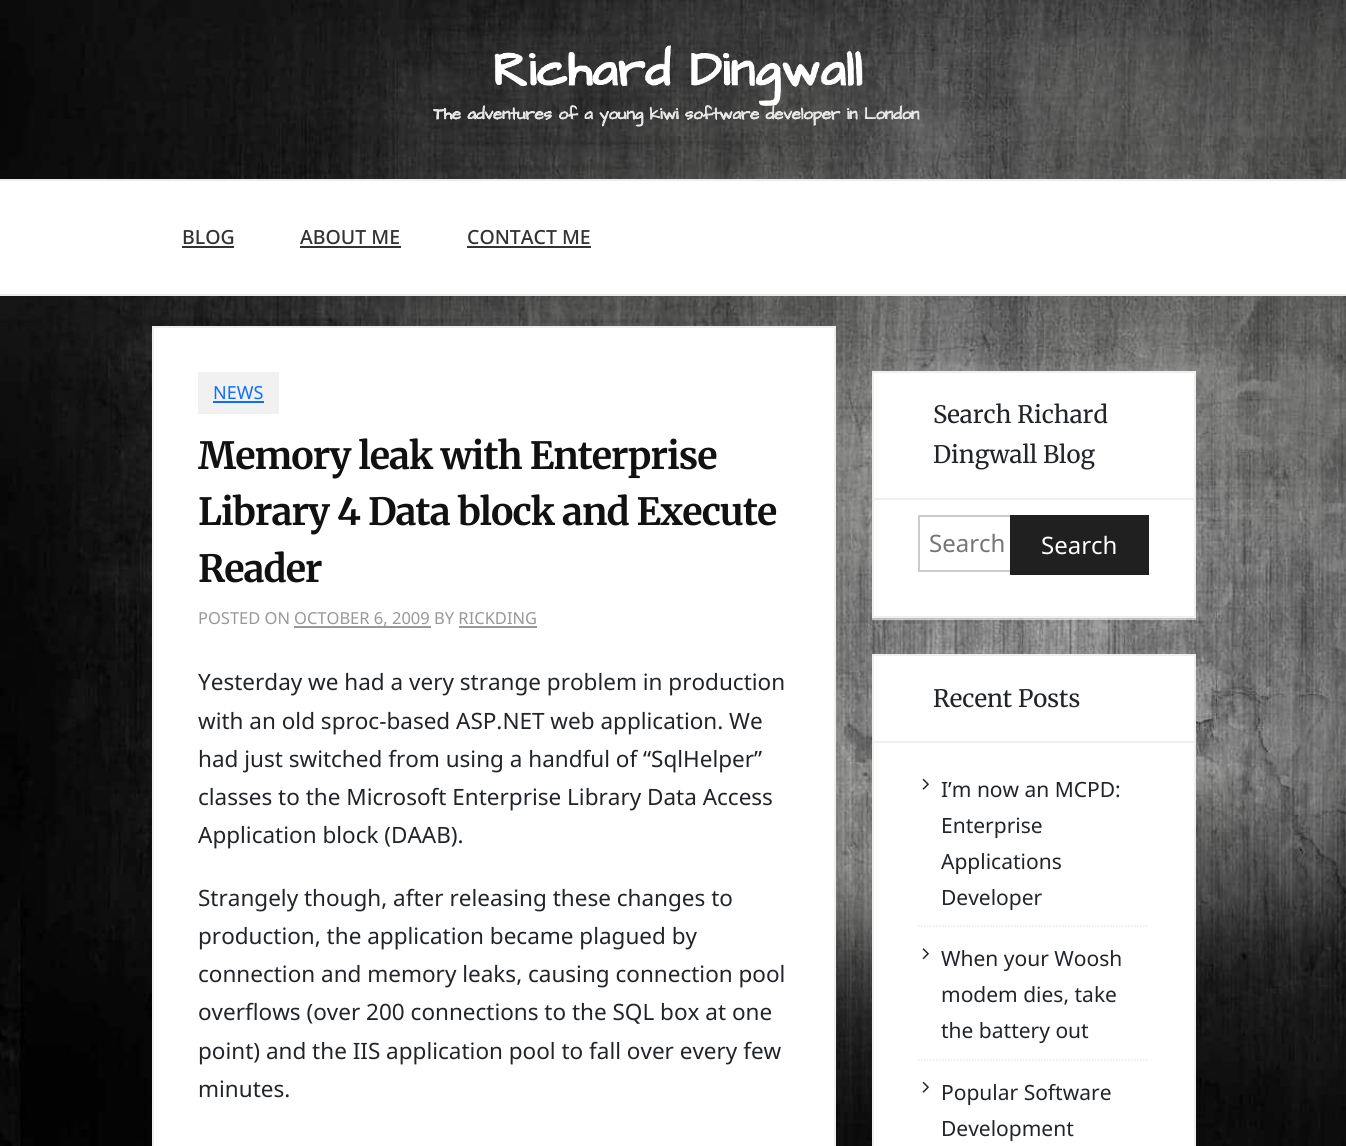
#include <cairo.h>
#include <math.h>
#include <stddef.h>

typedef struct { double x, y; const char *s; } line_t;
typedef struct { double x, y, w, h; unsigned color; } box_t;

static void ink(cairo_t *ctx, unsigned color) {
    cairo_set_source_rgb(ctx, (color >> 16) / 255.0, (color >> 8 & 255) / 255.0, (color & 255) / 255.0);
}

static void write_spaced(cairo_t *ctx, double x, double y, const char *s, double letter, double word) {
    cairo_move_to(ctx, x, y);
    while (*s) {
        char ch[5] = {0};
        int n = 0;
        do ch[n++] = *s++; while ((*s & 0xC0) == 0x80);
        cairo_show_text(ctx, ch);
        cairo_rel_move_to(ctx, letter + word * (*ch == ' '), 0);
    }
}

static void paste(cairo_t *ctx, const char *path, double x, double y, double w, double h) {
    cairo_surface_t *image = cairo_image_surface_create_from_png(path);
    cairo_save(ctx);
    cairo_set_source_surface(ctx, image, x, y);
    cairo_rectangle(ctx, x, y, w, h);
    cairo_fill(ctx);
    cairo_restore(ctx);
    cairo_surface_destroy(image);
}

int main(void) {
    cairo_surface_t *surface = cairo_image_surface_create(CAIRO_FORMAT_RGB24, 1346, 1146);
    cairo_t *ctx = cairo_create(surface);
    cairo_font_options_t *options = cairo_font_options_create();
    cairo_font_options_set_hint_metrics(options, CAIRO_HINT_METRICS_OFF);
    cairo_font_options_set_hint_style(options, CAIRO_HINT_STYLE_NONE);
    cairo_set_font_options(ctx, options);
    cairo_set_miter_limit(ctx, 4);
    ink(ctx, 0xFFFFFF);
    cairo_paint(ctx);
    paste(ctx, "media/1.png", 0, 0, 1346, 1146);
    paste(ctx, "media/2.png", 433, 45, 487, 82);
    {
        static const box_t items[] = {
            {0, 181, 1346, 113, 0xFFFFFF},
            {0, 179, 1346, 2, 0xECECEC},
            {0, 294, 1346, 2, 0xECECEC},
        };
        for (size_t i = 0; i < sizeof items / sizeof *items; i++) {
            ink(ctx, items[i].color);
            cairo_rectangle(ctx, items[i].x, items[i].y, items[i].w, items[i].h);
            cairo_fill(ctx);
        }
    }
    cairo_select_font_face(ctx, "Noto Sans Medium", CAIRO_FONT_SLANT_NORMAL, CAIRO_FONT_WEIGHT_NORMAL);
    cairo_set_font_size(ctx, 19.5);
    ink(ctx, 0x333333);
    cairo_move_to(ctx, 182, 244);
    cairo_show_text(ctx, "BLOG");
    cairo_rectangle(ctx, 182, 246, 52, 2);
    cairo_fill(ctx);
    cairo_move_to(ctx, 300, 244);
    cairo_show_text(ctx, "ABOUT ME");
    cairo_rectangle(ctx, 300, 246, 101, 2);
    cairo_fill(ctx);
    cairo_move_to(ctx, 467, 244);
    cairo_show_text(ctx, "CONTACT ME");
    cairo_rectangle(ctx, 467, 246, 124, 2);
    cairo_fill(ctx);
    ink(ctx, 0xFFFFFF);
    cairo_rectangle(ctx, 153, 327, 682, 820);
    cairo_fill_preserve(ctx);
    ink(ctx, 0xEFEFEF);
    cairo_stroke(ctx);
    ink(ctx, 0xF1F1F1);
    cairo_rectangle(ctx, 198, 372, 81, 42);
    cairo_fill(ctx);
    cairo_select_font_face(ctx, "Noto Sans", CAIRO_FONT_SLANT_NORMAL, CAIRO_FONT_WEIGHT_NORMAL);
    cairo_set_font_size(ctx, 18);
    ink(ctx, 0x0D6EFD);
    cairo_move_to(ctx, 213, 399);
    cairo_show_text(ctx, "NEWS");
    cairo_rectangle(ctx, 213, 401, 51, 2);
    cairo_fill(ctx);
    cairo_select_font_face(ctx, "Merriweather", CAIRO_FONT_SLANT_NORMAL, CAIRO_FONT_WEIGHT_BOLD);
    cairo_set_font_size(ctx, 37.5);
    ink(ctx, 0x111111);
    {
        static const line_t items[] = {
            {198, 469, "Memory leak with Enterprise"},
            {198, 525, "Library 4 Data block and Execute"},
            {198, 582, "Reader"},
        };
        for (size_t i = 0; i < sizeof items / sizeof *items; i++) {
            write_spaced(ctx, items[i].x, items[i].y, items[i].s, -0.95, 0);
        }
    }
    cairo_select_font_face(ctx, "Noto Sans", CAIRO_FONT_SLANT_NORMAL, CAIRO_FONT_WEIGHT_NORMAL);
    cairo_set_font_size(ctx, 16.5);
    ink(ctx, 0x989898);
    cairo_move_to(ctx, 198, 624);
    cairo_show_text(ctx, "POSTED ON");
    cairo_rectangle(ctx, 294, 626, 137, 2);
    cairo_fill(ctx);
    cairo_move_to(ctx, 294, 624);
    cairo_show_text(ctx, "OCTOBER 6, 2009 BY RICKDING");
    cairo_rectangle(ctx, 459, 626, 78, 2);
    cairo_fill(ctx);
    cairo_set_font_size(ctx, 22.5);
    ink(ctx, 0x212529);
    {
        static const line_t items[] = {
            {198, 690, "Yesterday we had a very strange problem in production"},
            {198, 729, "with an old sproc-based ASP.NET web application. We"},
            {198, 767, "had just switched from using a handful of “SqlHelper”"},
            {198, 805, "classes to the Microsoft Enterprise Library Data Access"},
            {198, 843, "Application block (DAAB)."},
            {198, 906, "Strangely though, after releasing these changes to"},
            {198, 944, "production, the application became plagued by"},
            {198, 982, "connection and memory leaks, causing connection pool"},
            {198, 1020, "overflows (over 200 connections to the SQL box at one"},
            {198, 1059, "point) and the IIS application pool to fall over every few"},
            {198, 1097, "minutes."},
        };
        for (size_t i = 0; i < sizeof items / sizeof *items; i++) {
            cairo_move_to(ctx, items[i].x, items[i].y);
            cairo_show_text(ctx, items[i].s);
        }
    }
    cairo_set_source_rgba(ctx, 0.933, 0.933, 0.933, 0.6);
    cairo_new_path(ctx);
    cairo_move_to(ctx, 872, 618);
    cairo_line_to(ctx, 872, 620);
    cairo_line_to(ctx, 1196, 620);
    cairo_line_to(ctx, 1196, 372);
    cairo_line_to(ctx, 1196, 618);
    cairo_close_path(ctx);
    cairo_fill(ctx);
    ink(ctx, 0xFFFFFF);
    cairo_rectangle(ctx, 873, 372, 322, 245);
    cairo_fill_preserve(ctx);
    ink(ctx, 0xEFEFEF);
    cairo_stroke(ctx);
    cairo_rectangle(ctx, 873, 498, 321, 2);
    cairo_fill(ctx);
    cairo_select_font_face(ctx, "Merriweather", CAIRO_FONT_SLANT_NORMAL, CAIRO_FONT_WEIGHT_NORMAL);
    cairo_set_font_size(ctx, 24);
    ink(ctx, 0x212529);
    cairo_move_to(ctx, 933, 423);
    cairo_show_text(ctx, "Search Richard");
    cairo_move_to(ctx, 933, 463);
    cairo_show_text(ctx, "Dingwall Blog");
    cairo_rectangle(ctx, 919, 516, 229, 55);
    ink(ctx, 0xCCCCCC);
    cairo_stroke(ctx);
    cairo_select_font_face(ctx, "Noto Sans", CAIRO_FONT_SLANT_NORMAL, CAIRO_FONT_WEIGHT_NORMAL);
    ink(ctx, 0x757575);
    cairo_move_to(ctx, 929, 552);
    cairo_show_text(ctx, "Search");
    ink(ctx, 0x202020);
    cairo_rectangle(ctx, 1010, 515, 139, 60);
    cairo_fill(ctx);
    ink(ctx, 0xFFFFFF);
    cairo_move_to(ctx, 1041, 554);
    cairo_show_text(ctx, "Search");
    cairo_rectangle(ctx, 873, 655, 322, 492);
    cairo_fill_preserve(ctx);
    ink(ctx, 0xEFEFEF);
    cairo_stroke(ctx);
    cairo_rectangle(ctx, 873, 741, 321, 2);
    cairo_fill(ctx);
    cairo_select_font_face(ctx, "Merriweather", CAIRO_FONT_SLANT_NORMAL, CAIRO_FONT_WEIGHT_NORMAL);
    ink(ctx, 0x212529);
    cairo_move_to(ctx, 933, 707);
    cairo_show_text(ctx, "Recent Posts");
    paste(ctx, "media/3.png", 922, 778, 7, 12);
    cairo_select_font_face(ctx, "Noto Sans", CAIRO_FONT_SLANT_NORMAL, CAIRO_FONT_WEIGHT_NORMAL);
    cairo_set_font_size(ctx, 21);
    {
        static const line_t items[] = {
            {941, 797, "I’m now an MCPD:"},
            {941, 833, "Enterprise"},
            {941, 869, "Applications"},
            {941, 905, "Developer"},
        };
        for (size_t i = 0; i < sizeof items / sizeof *items; i++) {
            cairo_move_to(ctx, items[i].x, items[i].y);
            cairo_show_text(ctx, items[i].s);
        }
    }
    cairo_new_path(ctx);
    cairo_move_to(ctx, 918, 926);
    cairo_line_to(ctx, 1149, 926);
    ink(ctx, 0xE9E9E9);
    cairo_set_line_width(ctx, 1.5);
    cairo_set_dash(ctx, (double[]){1.5, 1.5}, 2, 0);
    cairo_stroke(ctx);
    paste(ctx, "media/4.png", 922, 948, 7, 12);
    ink(ctx, 0x212529);
    {
        static const line_t items[] = {
            {941, 966, "When your Woosh"},
            {941, 1002, "modem dies, take"},
            {941, 1038, "the battery out"},
        };
        for (size_t i = 0; i < sizeof items / sizeof *items; i++) {
            cairo_move_to(ctx, items[i].x, items[i].y);
            cairo_show_text(ctx, items[i].s);
        }
    }
    cairo_new_path(ctx);
    cairo_move_to(ctx, 918, 1060);
    cairo_line_to(ctx, 1149, 1060);
    ink(ctx, 0xE9E9E9);
    cairo_stroke(ctx);
    paste(ctx, "media/3.png", 922, 1081, 7, 12);
    ink(ctx, 0x212529);
    cairo_move_to(ctx, 941, 1100);
    cairo_show_text(ctx, "Popular Software");
    cairo_move_to(ctx, 941, 1136);
    cairo_show_text(ctx, "Development");
    cairo_surface_write_to_png(surface, "image.png");
    cairo_font_options_destroy(options);
    cairo_destroy(ctx);
    cairo_surface_destroy(surface);
    return 0;
}
